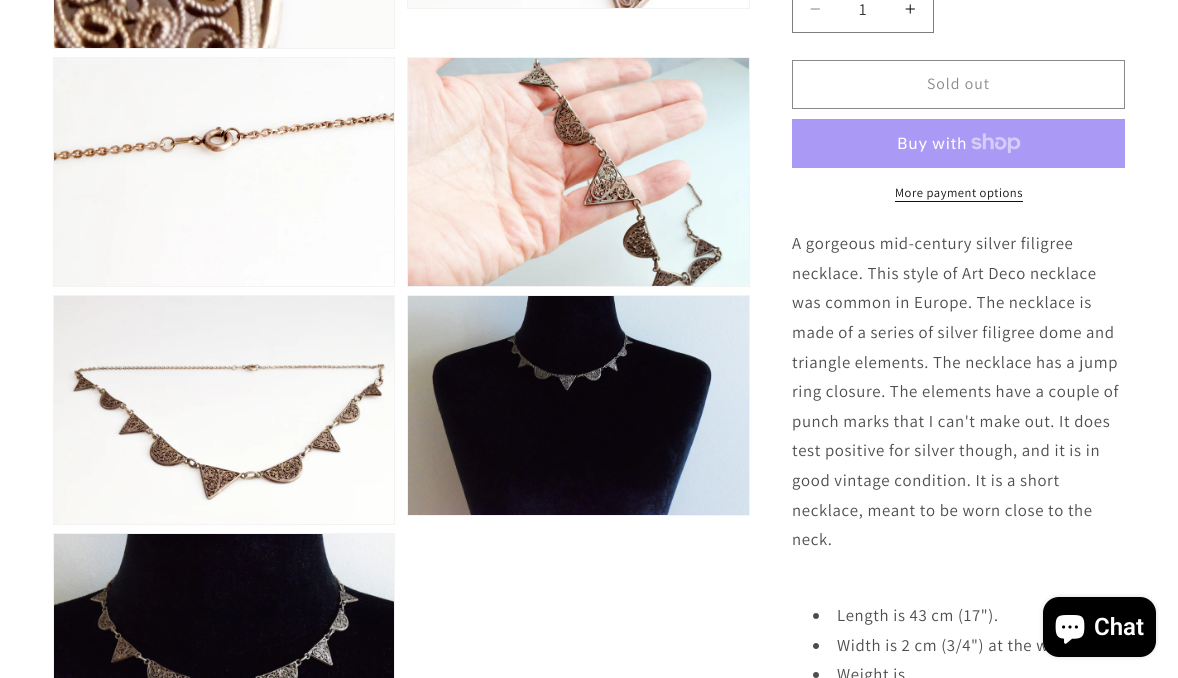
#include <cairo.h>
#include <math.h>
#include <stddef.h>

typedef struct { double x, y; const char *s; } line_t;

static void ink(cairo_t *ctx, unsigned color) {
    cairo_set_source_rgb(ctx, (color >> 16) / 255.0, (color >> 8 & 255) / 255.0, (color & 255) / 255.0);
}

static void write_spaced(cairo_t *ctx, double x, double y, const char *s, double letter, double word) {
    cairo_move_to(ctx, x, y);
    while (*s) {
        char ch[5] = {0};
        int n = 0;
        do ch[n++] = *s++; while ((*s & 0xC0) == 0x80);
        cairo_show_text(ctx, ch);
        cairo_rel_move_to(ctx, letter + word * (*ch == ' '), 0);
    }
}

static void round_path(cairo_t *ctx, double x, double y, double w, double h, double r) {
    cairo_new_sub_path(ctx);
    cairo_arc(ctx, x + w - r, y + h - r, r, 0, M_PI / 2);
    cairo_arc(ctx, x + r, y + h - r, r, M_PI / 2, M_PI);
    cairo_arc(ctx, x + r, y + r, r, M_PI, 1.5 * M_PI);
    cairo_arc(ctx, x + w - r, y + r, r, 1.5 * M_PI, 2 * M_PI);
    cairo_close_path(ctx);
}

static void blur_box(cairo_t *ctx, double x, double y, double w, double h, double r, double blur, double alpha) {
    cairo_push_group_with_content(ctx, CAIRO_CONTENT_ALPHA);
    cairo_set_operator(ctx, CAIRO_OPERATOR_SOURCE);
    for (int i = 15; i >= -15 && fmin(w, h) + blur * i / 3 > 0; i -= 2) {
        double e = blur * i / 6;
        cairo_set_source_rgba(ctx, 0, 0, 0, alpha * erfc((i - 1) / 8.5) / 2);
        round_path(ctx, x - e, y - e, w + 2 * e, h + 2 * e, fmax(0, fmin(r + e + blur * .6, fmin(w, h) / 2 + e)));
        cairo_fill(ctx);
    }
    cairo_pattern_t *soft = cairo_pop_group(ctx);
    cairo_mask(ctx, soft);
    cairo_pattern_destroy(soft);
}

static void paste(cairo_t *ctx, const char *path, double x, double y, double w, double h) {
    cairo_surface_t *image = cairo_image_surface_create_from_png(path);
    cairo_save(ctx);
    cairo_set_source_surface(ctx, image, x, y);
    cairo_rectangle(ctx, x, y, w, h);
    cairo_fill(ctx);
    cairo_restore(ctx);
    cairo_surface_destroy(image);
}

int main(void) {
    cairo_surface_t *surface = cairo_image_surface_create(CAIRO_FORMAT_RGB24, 1178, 678);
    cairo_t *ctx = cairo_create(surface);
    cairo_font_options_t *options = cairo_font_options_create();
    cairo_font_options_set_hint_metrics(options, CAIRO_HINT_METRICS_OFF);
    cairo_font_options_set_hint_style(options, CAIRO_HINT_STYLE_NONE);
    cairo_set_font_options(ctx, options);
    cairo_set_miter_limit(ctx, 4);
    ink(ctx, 0xFFFFFF);
    cairo_paint(ctx);
    cairo_rectangle(ctx, 53.5, -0.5, 341, 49);
    ink(ctx, 0xF3F3F3);
    cairo_set_line_width(ctx, 1);
    cairo_stroke(ctx);
    paste(ctx, "media/1.png", 54, 0, 340, 48);
    cairo_rectangle(ctx, 407.5, -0.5, 342, 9);
    cairo_stroke(ctx);
    paste(ctx, "media/2.png", 408, 0, 245, 8);
    cairo_rectangle(ctx, 53.5, 57.5, 341, 229);
    cairo_stroke(ctx);
    paste(ctx, "media/3.png", 54, 58, 340, 228);
    cairo_rectangle(ctx, 407.5, 57.5, 342, 229);
    cairo_stroke(ctx);
    paste(ctx, "media/4.png", 408, 58, 341, 228);
    cairo_rectangle(ctx, 53.5, 295.5, 341, 229);
    cairo_stroke(ctx);
    paste(ctx, "media/5.png", 54, 296, 340, 228);
    cairo_rectangle(ctx, 407.5, 295.5, 342, 220);
    cairo_stroke(ctx);
    paste(ctx, "media/6.png", 408, 296, 341, 219);
    cairo_rectangle(ctx, 53.5, 533.5, 341, 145);
    cairo_stroke(ctx);
    paste(ctx, "media/7.png", 54, 534, 340, 144);
    paste(ctx, "media/8.png", 810, 8, 10, 2);
    paste(ctx, "media/9.png", 905, 4, 10, 10);
    cairo_rectangle(ctx, 792.5, -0.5, 141, 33);
    ink(ctx, 0x7D7D7D);
    cairo_stroke(ctx);
    cairo_select_font_face(ctx, "Assistant", CAIRO_FONT_SLANT_NORMAL, CAIRO_FONT_WEIGHT_NORMAL);
    cairo_set_font_size(ctx, 16.75);
    ink(ctx, 0x363636);
    cairo_move_to(ctx, 859, 15);
    cairo_show_text(ctx, "1");
    cairo_rectangle(ctx, 792.5, 60.5, 332, 48);
    ink(ctx, 0x898989);
    cairo_stroke(ctx);
    cairo_set_font_size(ctx, 15.75);
    write_spaced(ctx, 927, 89, "Sold out", 1, 0);
    ink(ctx, 0xAA99F5);
    cairo_rectangle(ctx, 792, 119, 333, 49);
    cairo_fill(ctx);
    cairo_select_font_face(ctx, "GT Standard", CAIRO_FONT_SLANT_NORMAL, CAIRO_FONT_WEIGHT_NORMAL);
    cairo_set_font_size(ctx, 16);
    ink(ctx, 0xFFFFFF);
    write_spaced(ctx, 897, 149, "Buy with", 0.65, 0);
    paste(ctx, "media/10.png", 971, 133, 50, 20);
    cairo_select_font_face(ctx, "Assistant", CAIRO_FONT_SLANT_NORMAL, CAIRO_FONT_WEIGHT_NORMAL);
    cairo_set_font_size(ctx, 12.6);
    ink(ctx, 0x121212);
    write_spaced(ctx, 895, 197, "More payment options", 0.5, 0);
    cairo_rectangle(ctx, 895, 201, 128, 1);
    cairo_fill(ctx);
    cairo_set_font_size(ctx, 16.75);
    ink(ctx, 0x4D4D4D);
    {
        static const line_t items[] = {
            {792, 249, "A gorgeous mid-century silver filigree"},
            {792, 279, "necklace. This style of Art Deco necklace"},
            {792, 308, "was common in Europe. The necklace is"},
            {792, 338, "made of a series of silver filigree dome and"},
            {792, 368, "triangle elements. The necklace has a jump"},
            {792, 397, "ring closure. The elements have a couple of"},
            {792, 427, "punch marks that I can't make out. It does"},
            {792, 456, "test positive for silver though, and it is in"},
            {792, 486, "good vintage condition. It is a short"},
            {792, 516, "necklace, meant to be worn close to the"},
            {792, 545, "neck."},
        };
        for (size_t i = 0; i < sizeof items / sizeof *items; i++) {
            write_spaced(ctx, items[i].x, items[i].y, items[i].s, 0.65, 0);
        }
    }
    cairo_new_path(ctx);
    cairo_arc(ctx, 816, 616, 3, 0, 2 * M_PI);
    cairo_fill(ctx);
    write_spaced(ctx, 837, 621, "Length is 43 cm (17\").", 0.65, 0);
    cairo_new_path(ctx);
    cairo_arc(ctx, 816, 646, 3, 0, 2 * M_PI);
    cairo_fill(ctx);
    write_spaced(ctx, 837, 651, "Width is 2 cm (3/4\") at the w", 0.65, 0);
    cairo_new_path(ctx);
    cairo_arc(ctx, 816, 675, 3, 0, 2 * M_PI);
    cairo_fill(ctx);
    write_spaced(ctx, 837, 680, "Weight is", 0.65, 0);
    ink(ctx, 0x000000);
    blur_box(ctx, 1043, 597, 113, 60, 16, 2.5, 0.15);
    ink(ctx, 0x000000);
    round_path(ctx, 1043, 597, 113, 60, 16);
    cairo_fill(ctx);
    paste(ctx, "media/11.png", 1055, 615, 30, 29);
    cairo_select_font_face(ctx, "Roboto SemiBold", CAIRO_FONT_SLANT_NORMAL, CAIRO_FONT_WEIGHT_NORMAL);
    cairo_set_font_size(ctx, 24);
    ink(ctx, 0xFFFFFF);
    cairo_move_to(ctx, 1094, 635);
    cairo_show_text(ctx, "Chat");
    cairo_surface_write_to_png(surface, "image.png");
    cairo_font_options_destroy(options);
    cairo_destroy(ctx);
    cairo_surface_destroy(surface);
    return 0;
}
